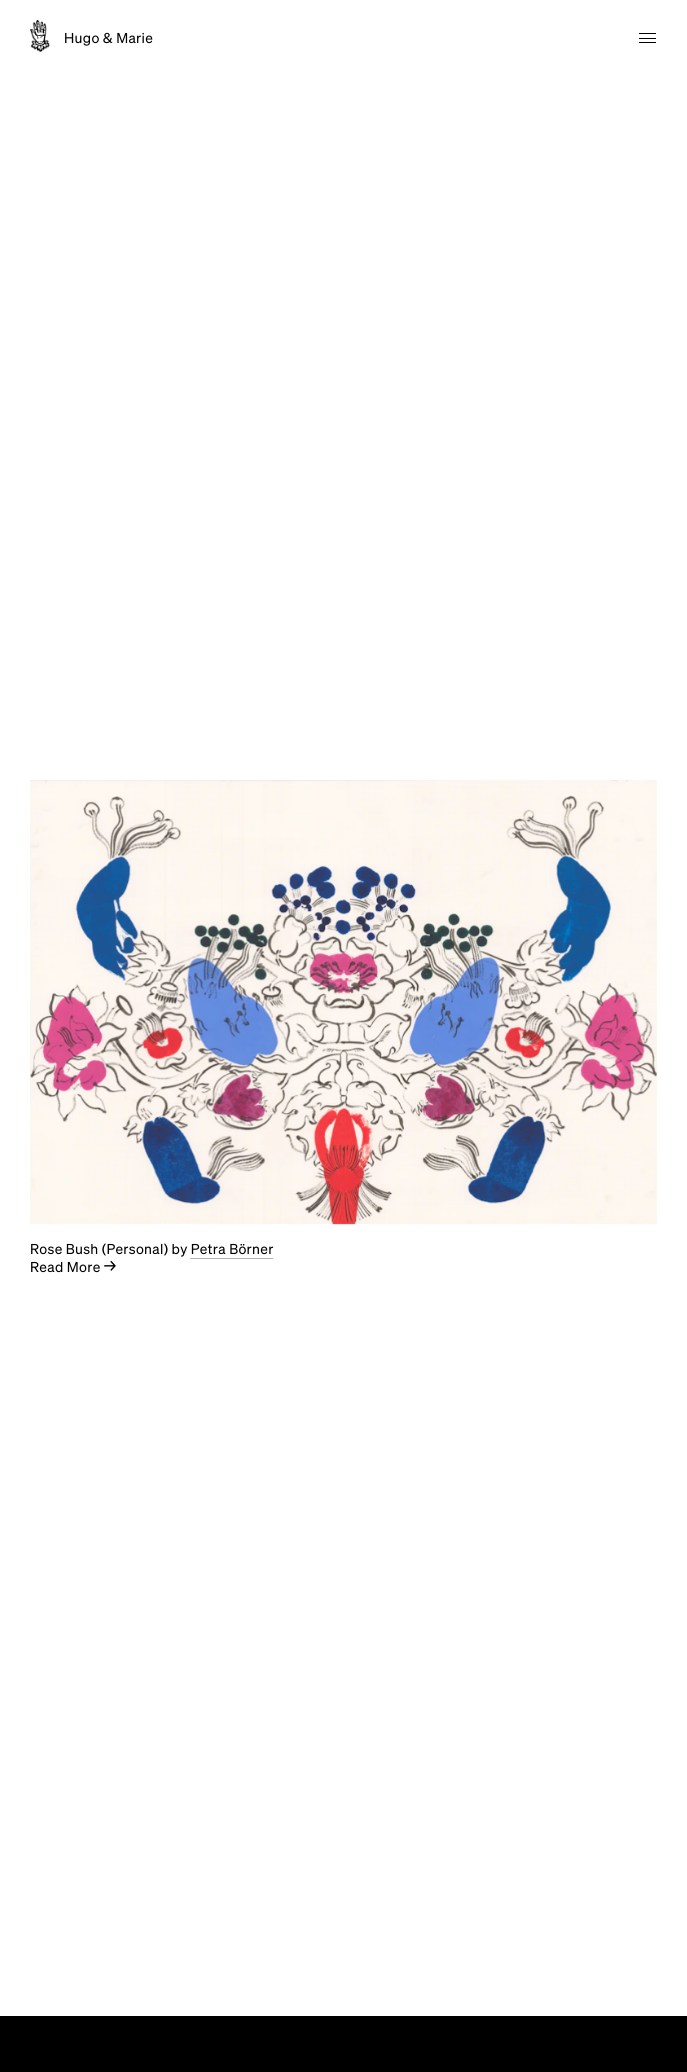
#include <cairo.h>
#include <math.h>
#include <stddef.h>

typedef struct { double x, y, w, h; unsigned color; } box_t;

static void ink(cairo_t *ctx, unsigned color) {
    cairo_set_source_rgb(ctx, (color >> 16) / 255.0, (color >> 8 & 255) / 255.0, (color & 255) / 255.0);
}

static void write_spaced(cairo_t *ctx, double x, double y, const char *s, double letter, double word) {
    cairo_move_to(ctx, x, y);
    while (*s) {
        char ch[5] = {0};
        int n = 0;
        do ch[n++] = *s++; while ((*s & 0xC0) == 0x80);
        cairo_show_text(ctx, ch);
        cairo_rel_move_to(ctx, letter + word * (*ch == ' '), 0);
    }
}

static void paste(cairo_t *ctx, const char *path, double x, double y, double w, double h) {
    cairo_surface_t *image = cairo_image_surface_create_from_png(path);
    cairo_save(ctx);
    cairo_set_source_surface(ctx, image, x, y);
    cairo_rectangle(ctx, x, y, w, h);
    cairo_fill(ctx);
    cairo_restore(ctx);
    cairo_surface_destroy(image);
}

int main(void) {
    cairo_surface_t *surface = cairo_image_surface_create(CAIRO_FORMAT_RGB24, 687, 2072);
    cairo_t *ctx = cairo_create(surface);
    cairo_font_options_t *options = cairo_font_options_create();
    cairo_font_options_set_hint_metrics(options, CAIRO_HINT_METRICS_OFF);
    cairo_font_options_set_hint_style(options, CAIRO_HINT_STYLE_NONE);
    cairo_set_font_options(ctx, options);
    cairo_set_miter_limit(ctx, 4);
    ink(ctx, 0xFFFFFF);
    cairo_paint(ctx);
    paste(ctx, "media/1.png", 30, 20, 20, 32);
    cairo_select_font_face(ctx, "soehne", CAIRO_FONT_SLANT_NORMAL, CAIRO_FONT_WEIGHT_NORMAL);
    cairo_set_font_size(ctx, 14);
    ink(ctx, 0x000000);
    write_spaced(ctx, 64, 43, "Hugo & Marie", 0.3, 0);
    {
        static const box_t items[] = {
            {639, 33, 17, 1, 0x000000},
            {639, 38, 17, 1, 0x000000},
            {639, 42, 17, 1, 0x000000},
        };
        for (size_t i = 0; i < sizeof items / sizeof *items; i++) {
            ink(ctx, items[i].color);
            cairo_rectangle(ctx, items[i].x, items[i].y, items[i].w, items[i].h);
            cairo_fill(ctx);
        }
    }
    paste(ctx, "media/2.png", 30, 780, 627, 445);
    write_spaced(ctx, 30, 1254, "Rose Bush (Personal) by Petra Börner", 0.3, 0);
    ink(ctx, 0xB3B3B3);
    cairo_rectangle(ctx, 190, 1258, 83, 1);
    cairo_fill(ctx);
    ink(ctx, 0x000000);
    write_spaced(ctx, 30, 1272, "Read More", 0.3, 0);
    paste(ctx, "media/3.png", 104, 1260, 12, 11);
    cairo_rectangle(ctx, 0, 2016, 687, 56);
    cairo_fill(ctx);
    cairo_surface_write_to_png(surface, "image.png");
    cairo_font_options_destroy(options);
    cairo_destroy(ctx);
    cairo_surface_destroy(surface);
    return 0;
}
